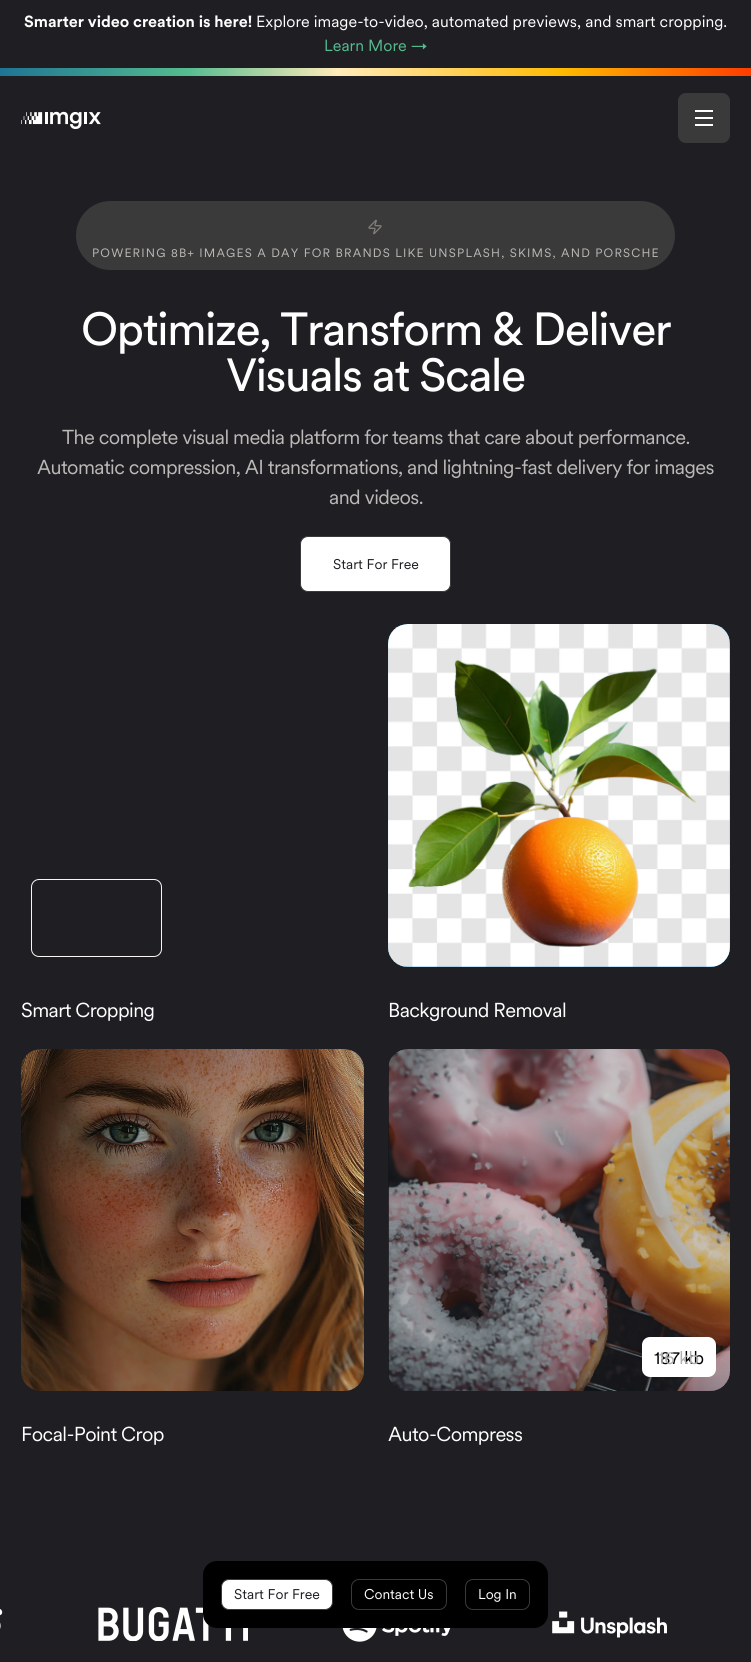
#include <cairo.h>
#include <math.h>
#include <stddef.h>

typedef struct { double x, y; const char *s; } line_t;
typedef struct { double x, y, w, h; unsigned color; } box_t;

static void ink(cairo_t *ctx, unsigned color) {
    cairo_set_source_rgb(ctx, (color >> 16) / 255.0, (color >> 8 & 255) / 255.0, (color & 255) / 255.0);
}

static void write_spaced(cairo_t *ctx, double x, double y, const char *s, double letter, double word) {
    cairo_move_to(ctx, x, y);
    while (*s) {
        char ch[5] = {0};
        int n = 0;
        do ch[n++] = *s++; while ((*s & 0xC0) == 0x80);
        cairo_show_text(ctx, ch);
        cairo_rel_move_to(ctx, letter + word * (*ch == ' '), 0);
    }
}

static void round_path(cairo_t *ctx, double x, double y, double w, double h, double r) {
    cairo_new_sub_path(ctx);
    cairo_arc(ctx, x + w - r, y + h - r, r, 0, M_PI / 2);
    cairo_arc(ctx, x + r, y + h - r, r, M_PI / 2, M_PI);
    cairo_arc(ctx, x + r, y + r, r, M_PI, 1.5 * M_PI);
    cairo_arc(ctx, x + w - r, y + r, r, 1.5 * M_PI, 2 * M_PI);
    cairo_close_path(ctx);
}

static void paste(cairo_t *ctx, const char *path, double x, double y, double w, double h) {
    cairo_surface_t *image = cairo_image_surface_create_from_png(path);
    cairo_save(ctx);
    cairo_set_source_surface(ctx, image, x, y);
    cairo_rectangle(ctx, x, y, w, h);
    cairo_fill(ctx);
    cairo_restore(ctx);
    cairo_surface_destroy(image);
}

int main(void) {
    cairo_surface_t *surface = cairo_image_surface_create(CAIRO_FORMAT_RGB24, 751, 1662);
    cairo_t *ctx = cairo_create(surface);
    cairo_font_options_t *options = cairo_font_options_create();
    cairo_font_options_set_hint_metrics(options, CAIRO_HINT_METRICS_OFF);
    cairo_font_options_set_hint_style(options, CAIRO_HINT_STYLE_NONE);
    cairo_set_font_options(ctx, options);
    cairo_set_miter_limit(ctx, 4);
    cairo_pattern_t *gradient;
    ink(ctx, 0x1E1E23);
    cairo_paint(ctx);
    cairo_select_font_face(ctx, "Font", CAIRO_FONT_SLANT_NORMAL, CAIRO_FONT_WEIGHT_BOLD);
    cairo_set_font_size(ctx, 16);
    ink(ctx, 0xFFFFFF);
    cairo_move_to(ctx, 24, 27);
    cairo_show_text(ctx, "Smarter video creation is here!");
    cairo_select_font_face(ctx, "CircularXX", CAIRO_FONT_SLANT_NORMAL, CAIRO_FONT_WEIGHT_NORMAL);
    cairo_move_to(ctx, 256, 27);
    cairo_show_text(ctx, "Explore image-to-video, automated previews, and smart cropping.");
    ink(ctx, 0x55BC90);
    cairo_move_to(ctx, 324, 51);
    cairo_show_text(ctx, "Learn More →");
    gradient = cairo_pattern_create_linear(0, 72, 751, 72);
    cairo_pattern_add_color_stop_rgba(gradient, 0, 0.118, 0.455, 0.58, 1);
    cairo_pattern_add_color_stop_rgba(gradient, 0.25, 0.333, 0.737, 0.565, 1);
    cairo_pattern_add_color_stop_rgba(gradient, 0.45, 1, 0.922, 0.725, 1);
    cairo_pattern_add_color_stop_rgba(gradient, 0.75, 1, 0.729, 0, 1);
    cairo_pattern_add_color_stop_rgba(gradient, 1, 1, 0.235, 0, 1);
    cairo_set_source(ctx, gradient);
    cairo_pattern_destroy(gradient);
    cairo_rectangle(ctx, 0, 68, 751, 8);
    cairo_fill(ctx);
    paste(ctx, "media/1.png", 21, 111, 80, 18);
    ink(ctx, 0x3A3A3A);
    round_path(ctx, 678.5, 93.5, 51, 49, 7.5);
    cairo_fill_preserve(ctx);
    cairo_set_line_width(ctx, 1);
    cairo_stroke(ctx);
    {
        static const box_t items[] = {
            {695, 110, 18, 2, 0xFFFFFF},
            {695, 117, 18, 2, 0xFFFFFF},
            {695, 124, 18, 2, 0xFFFFFF},
        };
        for (size_t i = 0; i < sizeof items / sizeof *items; i++) {
            ink(ctx, items[i].color);
            cairo_rectangle(ctx, items[i].x, items[i].y, items[i].w, items[i].h);
            cairo_fill(ctx);
        }
    }
    ink(ctx, 0x3A3A3A);
    round_path(ctx, 76, 201, 599, 69, 34.5);
    cairo_fill(ctx);
    paste(ctx, "media/2.png", 368, 219, 14, 16);
    cairo_set_font_size(ctx, 12);
    ink(ctx, 0xBCB9B6);
    write_spaced(ctx, 92, 257, "POWERING 8B+ IMAGES A DAY FOR BRANDS LIKE UNSPLASH, SKIMS, AND PORSCHE", 1.2, 0);
    cairo_select_font_face(ctx, "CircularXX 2", CAIRO_FONT_SLANT_NORMAL, CAIRO_FONT_WEIGHT_NORMAL);
    cairo_set_font_size(ctx, 46);
    ink(ctx, 0xFFFFFF);
    write_spaced(ctx, 81, 345, "Optimize, Transform & Deliver", -1.4, 0);
    write_spaced(ctx, 226, 391, "Visuals at Scale", -1.4, 0);
    cairo_select_font_face(ctx, "CircularXX", CAIRO_FONT_SLANT_NORMAL, CAIRO_FONT_WEIGHT_NORMAL);
    cairo_set_font_size(ctx, 20);
    ink(ctx, 0xBCB9B6);
    {
        static const line_t items[] = {
            {62, 444, "The complete visual media platform for teams that care about performance."},
            {37, 474, "Automatic compression, AI transformations, and lightning-fast delivery for images"},
            {329, 504, "and videos."},
        };
        for (size_t i = 0; i < sizeof items / sizeof *items; i++) {
            write_spaced(ctx, items[i].x, items[i].y, items[i].s, -0.6, 0);
        }
    }
    ink(ctx, 0xFFFFFF);
    round_path(ctx, 300.5, 536.5, 150, 55, 7.5);
    cairo_fill_preserve(ctx);
    ink(ctx, 0x3A3A3A);
    cairo_stroke(ctx);
    cairo_set_font_size(ctx, 14);
    ink(ctx, 0x1E1E23);
    cairo_move_to(ctx, 333, 569);
    cairo_show_text(ctx, "Start For Free");
    round_path(ctx, 31.5, 879.5, 130, 77, 7.5);
    ink(ctx, 0xF8F5F2);
    cairo_stroke(ctx);
    cairo_set_font_size(ctx, 20);
    ink(ctx, 0xFFFFFF);
    write_spaced(ctx, 21, 1017, "Smart Cropping", -0.6, 0);
    paste(ctx, "media/3.png", 21, 1049, 343, 342);
    write_spaced(ctx, 21, 1441, "Focal-Point Crop", -0.6, 0);
    paste(ctx, "media/4.png", 388, 624, 342, 343);
    paste(ctx, "media/5.png", 388, 624, 342, 343);
    write_spaced(ctx, 388, 1017, "Background Removal", -0.6, 0);
    paste(ctx, "media/6.png", 388, 1049, 342, 342);
    cairo_set_source_rgba(ctx, 0, 0, 0, 0.2);
    round_path(ctx, 388, 1049, 342, 342, 20);
    cairo_fill(ctx);
    ink(ctx, 0xFFFFFF);
    round_path(ctx, 642, 1337, 74, 40, 8);
    cairo_fill(ctx);
    cairo_set_font_size(ctx, 18);
    ink(ctx, 0x000000);
    cairo_move_to(ctx, 654, 1364);
    cairo_show_text(ctx, "187 kb");
    ink(ctx, 0xAFAFAF);
    cairo_move_to(ctx, 658, 1364);
    cairo_show_text(ctx, "16 kb");
    cairo_set_font_size(ctx, 20);
    ink(ctx, 0xFFFFFF);
    write_spaced(ctx, 388, 1441, "Auto-Compress", -0.6, 0);
    paste(ctx, "media/7.png", 0, 1609, 3, 20);
    paste(ctx, "media/8.png", 98, 1607, 150, 34);
    paste(ctx, "media/9.png", 342, 1628, 109, 14);
    paste(ctx, "media/10.png", 552, 1611, 115, 27);
    ink(ctx, 0x000000);
    round_path(ctx, 203, 1561, 345, 67, 14);
    cairo_fill(ctx);
    ink(ctx, 0xFFFFFF);
    round_path(ctx, 221.5, 1579.5, 111, 30, 7.5);
    cairo_fill_preserve(ctx);
    ink(ctx, 0x3A3A3A);
    cairo_stroke(ctx);
    cairo_set_font_size(ctx, 14);
    ink(ctx, 0x1E1E23);
    cairo_move_to(ctx, 234, 1599);
    cairo_show_text(ctx, "Start For Free");
    round_path(ctx, 351.5, 1579.5, 95, 30, 7.5);
    ink(ctx, 0x3A3A3A);
    cairo_stroke(ctx);
    ink(ctx, 0xFFFFFF);
    cairo_move_to(ctx, 364, 1599);
    cairo_show_text(ctx, "Contact Us");
    round_path(ctx, 465.5, 1579.5, 64, 30, 7.5);
    ink(ctx, 0x3A3A3A);
    cairo_stroke(ctx);
    ink(ctx, 0xFFFFFF);
    cairo_move_to(ctx, 478, 1599);
    cairo_show_text(ctx, "Log In");
    cairo_surface_write_to_png(surface, "image.png");
    cairo_font_options_destroy(options);
    cairo_destroy(ctx);
    cairo_surface_destroy(surface);
    return 0;
}
